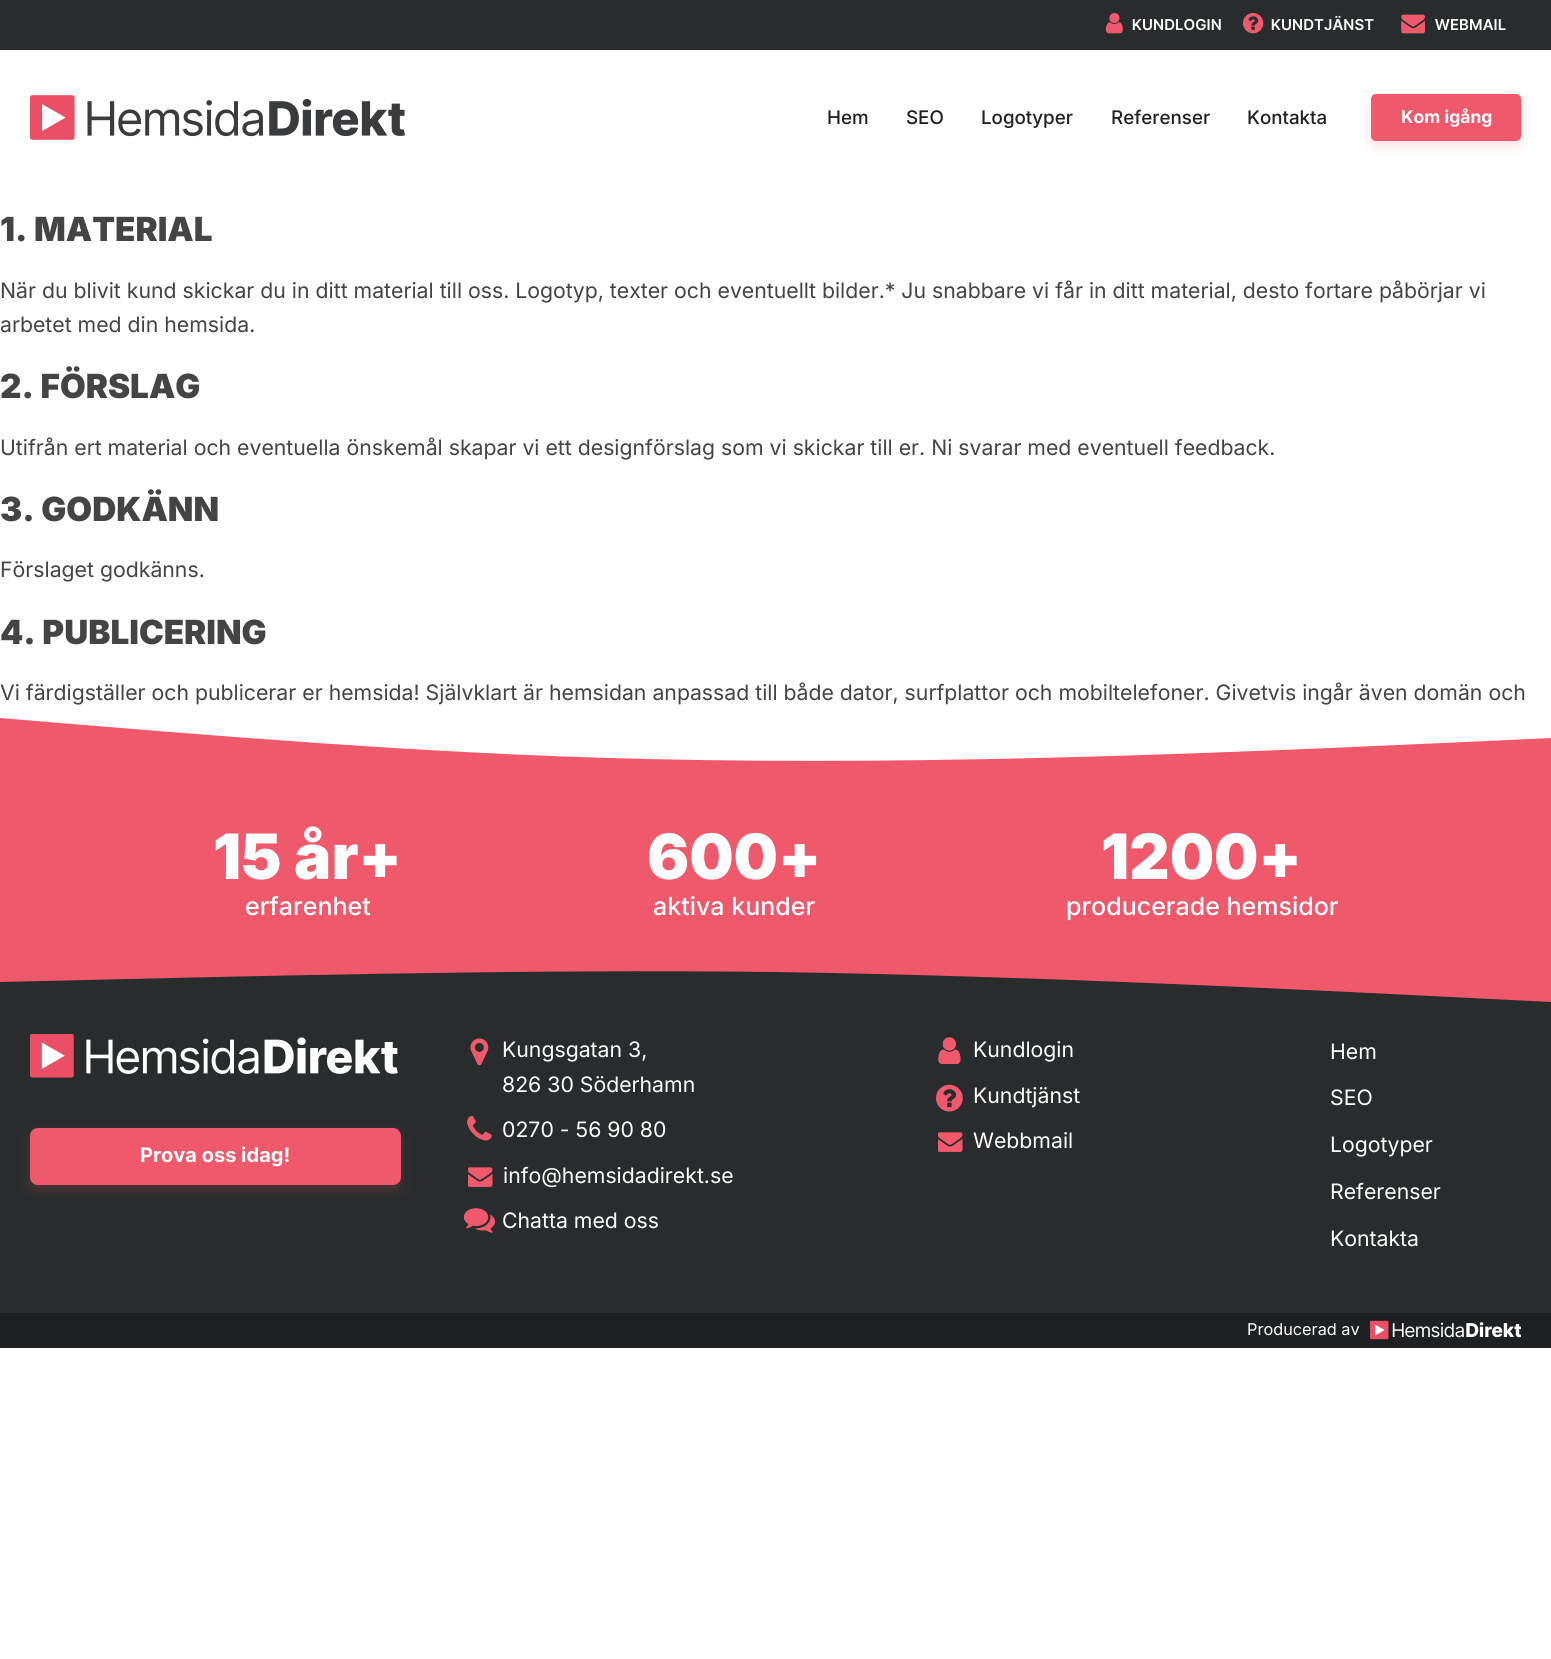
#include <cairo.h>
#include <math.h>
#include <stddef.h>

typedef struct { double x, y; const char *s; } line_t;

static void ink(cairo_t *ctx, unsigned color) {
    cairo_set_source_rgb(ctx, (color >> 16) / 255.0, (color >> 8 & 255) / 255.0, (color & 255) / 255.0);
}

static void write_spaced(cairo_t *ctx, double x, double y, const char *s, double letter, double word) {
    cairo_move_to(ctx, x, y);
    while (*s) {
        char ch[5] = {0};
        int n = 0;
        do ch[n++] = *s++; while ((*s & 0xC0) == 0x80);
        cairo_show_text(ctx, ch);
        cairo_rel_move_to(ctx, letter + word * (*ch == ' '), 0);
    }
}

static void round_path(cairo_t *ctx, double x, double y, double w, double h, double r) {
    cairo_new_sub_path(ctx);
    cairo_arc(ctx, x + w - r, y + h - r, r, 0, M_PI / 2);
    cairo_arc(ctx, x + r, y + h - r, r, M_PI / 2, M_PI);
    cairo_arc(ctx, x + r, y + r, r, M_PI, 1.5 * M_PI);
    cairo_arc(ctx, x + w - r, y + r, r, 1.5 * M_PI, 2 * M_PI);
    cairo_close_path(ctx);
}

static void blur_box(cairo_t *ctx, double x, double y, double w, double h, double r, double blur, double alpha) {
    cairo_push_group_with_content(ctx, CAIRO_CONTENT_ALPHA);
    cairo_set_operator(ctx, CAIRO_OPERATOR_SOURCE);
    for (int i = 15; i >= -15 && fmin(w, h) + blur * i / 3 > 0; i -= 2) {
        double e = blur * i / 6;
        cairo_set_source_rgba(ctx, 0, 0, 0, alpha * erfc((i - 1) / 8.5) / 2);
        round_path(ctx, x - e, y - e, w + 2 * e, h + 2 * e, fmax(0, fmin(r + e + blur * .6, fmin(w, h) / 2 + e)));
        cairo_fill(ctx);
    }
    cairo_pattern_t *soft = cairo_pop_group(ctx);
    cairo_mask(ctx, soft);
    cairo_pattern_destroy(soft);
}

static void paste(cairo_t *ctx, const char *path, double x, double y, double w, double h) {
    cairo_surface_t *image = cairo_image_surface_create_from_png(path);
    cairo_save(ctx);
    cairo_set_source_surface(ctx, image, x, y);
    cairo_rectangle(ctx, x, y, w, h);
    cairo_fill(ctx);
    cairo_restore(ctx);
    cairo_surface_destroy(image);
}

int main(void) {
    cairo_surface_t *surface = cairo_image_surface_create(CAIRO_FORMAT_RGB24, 1551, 1659);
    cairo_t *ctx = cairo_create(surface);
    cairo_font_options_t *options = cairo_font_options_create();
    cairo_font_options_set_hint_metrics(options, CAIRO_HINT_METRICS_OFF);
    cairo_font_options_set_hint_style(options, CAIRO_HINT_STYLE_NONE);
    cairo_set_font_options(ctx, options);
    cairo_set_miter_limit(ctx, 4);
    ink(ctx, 0xFFFFFF);
    cairo_paint(ctx);
    ink(ctx, 0x292C2D);
    cairo_rectangle(ctx, 0, 0, 1551, 50);
    cairo_fill(ctx);
    paste(ctx, "media/1.png", 1105, 12, 18, 22);
    cairo_select_font_face(ctx, "Inter Tight SemiBold", CAIRO_FONT_SLANT_NORMAL, CAIRO_FONT_WEIGHT_NORMAL);
    cairo_set_font_size(ctx, 15);
    ink(ctx, 0xFFFFFF);
    write_spaced(ctx, 1132, 30, "KUNDLOGIN", 0.6, 0);
    paste(ctx, "media/2.png", 1243, 12, 21, 22);
    write_spaced(ctx, 1271, 30, "KUNDTJÄNST", 0.6, 0);
    paste(ctx, "media/3.png", 1401, 14, 24, 20);
    write_spaced(ctx, 1435, 30, "WEBMAIL", 0.6, 0);
    paste(ctx, "media/4.png", 30, 95, 375, 45);
    cairo_select_font_face(ctx, "Inter Medium", CAIRO_FONT_SLANT_NORMAL, CAIRO_FONT_WEIGHT_NORMAL);
    cairo_set_font_size(ctx, 18.75);
    ink(ctx, 0x1E2021);
    {
        static const line_t items[] = {
            {827, 124, "Hem"},
            {906, 124, "SEO"},
            {981, 124, "Logotyper"},
            {1111, 124, "Referenser"},
            {1247, 124, "Kontakta"},
        };
        for (size_t i = 0; i < sizeof items / sizeof *items; i++) {
            cairo_move_to(ctx, items[i].x, items[i].y);
            cairo_show_text(ctx, items[i].s);
        }
    }
    ink(ctx, 0xF0596C);
    blur_box(ctx, 1371, 99, 150, 47, 5, 5.5, 0.2);
    ink(ctx, 0xF0596C);
    round_path(ctx, 1371, 94, 150, 47, 5);
    cairo_fill(ctx);
    cairo_select_font_face(ctx, "Inter", CAIRO_FONT_SLANT_NORMAL, CAIRO_FONT_WEIGHT_BOLD);
    cairo_set_font_size(ctx, 17.5);
    ink(ctx, 0xFFFFFF);
    cairo_move_to(ctx, 1401, 123);
    cairo_show_text(ctx, "Kom igång");
    cairo_select_font_face(ctx, "Inter Black", CAIRO_FONT_SLANT_NORMAL, CAIRO_FONT_WEIGHT_NORMAL);
    cairo_set_font_size(ctx, 33.25);
    ink(ctx, 0x444444);
    cairo_move_to(ctx, 0, 241);
    cairo_show_text(ctx, "1. MATERIAL");
    cairo_select_font_face(ctx, "Inter", CAIRO_FONT_SLANT_NORMAL, CAIRO_FONT_WEIGHT_NORMAL);
    cairo_set_font_size(ctx, 21.25);
    cairo_move_to(ctx, 0, 298);
    cairo_show_text(ctx, "När du blivit kund skickar du in ditt material till oss. Logotyp, texter och eventuellt bilder.* Ju snabbare vi får in ditt material, desto fortare påbörjar vi");
    cairo_move_to(ctx, 0, 332);
    cairo_show_text(ctx, "arbetet med din hemsida.");
    cairo_select_font_face(ctx, "Inter Black", CAIRO_FONT_SLANT_NORMAL, CAIRO_FONT_WEIGHT_NORMAL);
    cairo_set_font_size(ctx, 33.25);
    cairo_move_to(ctx, 0, 398);
    cairo_show_text(ctx, "2. FÖRSLAG");
    cairo_select_font_face(ctx, "Inter", CAIRO_FONT_SLANT_NORMAL, CAIRO_FONT_WEIGHT_NORMAL);
    cairo_set_font_size(ctx, 21.25);
    cairo_move_to(ctx, 0, 455);
    cairo_show_text(ctx, "Utifrån ert material och eventuella önskemål skapar vi ett designförslag som vi skickar till er. Ni svarar med eventuell feedback.");
    cairo_select_font_face(ctx, "Inter Black", CAIRO_FONT_SLANT_NORMAL, CAIRO_FONT_WEIGHT_NORMAL);
    cairo_set_font_size(ctx, 33.25);
    cairo_move_to(ctx, 0, 521);
    cairo_show_text(ctx, "3. GODKÄNN");
    cairo_select_font_face(ctx, "Inter", CAIRO_FONT_SLANT_NORMAL, CAIRO_FONT_WEIGHT_NORMAL);
    cairo_set_font_size(ctx, 21.25);
    cairo_move_to(ctx, 0, 577);
    cairo_show_text(ctx, "Förslaget godkänns.");
    cairo_select_font_face(ctx, "Inter Black", CAIRO_FONT_SLANT_NORMAL, CAIRO_FONT_WEIGHT_NORMAL);
    cairo_set_font_size(ctx, 33.25);
    cairo_move_to(ctx, 0, 644);
    cairo_show_text(ctx, "4. PUBLICERING");
    cairo_select_font_face(ctx, "Inter", CAIRO_FONT_SLANT_NORMAL, CAIRO_FONT_WEIGHT_NORMAL);
    cairo_set_font_size(ctx, 21.25);
    cairo_move_to(ctx, 0, 700);
    cairo_show_text(ctx, "Vi färdigställer och publicerar er hemsida! Självklart är hemsidan anpassad till både dator, surfplattor och mobiltelefoner. Givetvis ingår även domän och");
    ink(ctx, 0xF0596C);
    cairo_new_path(ctx);
    cairo_move_to(ctx, 1551, 738);
    cairo_curve_to(ctx, 1250, 752, 948, 766, 646, 759);
    cairo_curve_to(ctx, 430, 754, 215, 736, 0, 718);
    cairo_line_to(ctx, 0, 768);
    cairo_line_to(ctx, 1551, 768);
    cairo_close_path(ctx);
    cairo_fill(ctx);
    cairo_rectangle(ctx, 0, 768, 1551, 190);
    cairo_fill(ctx);
    cairo_select_font_face(ctx, "Inter Black", CAIRO_FONT_SLANT_NORMAL, CAIRO_FONT_WEIGHT_NORMAL);
    cairo_set_font_size(ctx, 62.5);
    ink(ctx, 0xFFFFFF);
    cairo_move_to(ctx, 213, 879);
    cairo_show_text(ctx, "15 år+");
    cairo_select_font_face(ctx, "Inter Medium", CAIRO_FONT_SLANT_NORMAL, CAIRO_FONT_WEIGHT_NORMAL);
    cairo_set_font_size(ctx, 25);
    cairo_move_to(ctx, 245, 915);
    cairo_show_text(ctx, "erfarenhet");
    cairo_select_font_face(ctx, "Inter Black", CAIRO_FONT_SLANT_NORMAL, CAIRO_FONT_WEIGHT_NORMAL);
    cairo_set_font_size(ctx, 62.5);
    cairo_move_to(ctx, 647, 879);
    cairo_show_text(ctx, "600+");
    cairo_select_font_face(ctx, "Inter Medium", CAIRO_FONT_SLANT_NORMAL, CAIRO_FONT_WEIGHT_NORMAL);
    cairo_set_font_size(ctx, 25);
    cairo_move_to(ctx, 653, 915);
    cairo_show_text(ctx, "aktiva kunder");
    cairo_select_font_face(ctx, "Inter Black", CAIRO_FONT_SLANT_NORMAL, CAIRO_FONT_WEIGHT_NORMAL);
    cairo_set_font_size(ctx, 62.5);
    cairo_move_to(ctx, 1101, 879);
    cairo_show_text(ctx, "1200+");
    cairo_select_font_face(ctx, "Inter Medium", CAIRO_FONT_SLANT_NORMAL, CAIRO_FONT_WEIGHT_NORMAL);
    cairo_set_font_size(ctx, 25);
    cairo_move_to(ctx, 1066, 915);
    cairo_show_text(ctx, "producerade hemsidor");
    ink(ctx, 0x292C2D);
    cairo_rectangle(ctx, 0, 971, 1551, 342);
    cairo_fill(ctx);
    cairo_save(ctx);
    cairo_rectangle(ctx, 0, 958, 1551, 50);
    cairo_clip(ctx);
    ink(ctx, 0xF0596C);
    cairo_new_path(ctx);
    cairo_move_to(ctx, 0, 982);
    cairo_curve_to(ctx, 258, 976, 517, 969, 776, 972);
    cairo_curve_to(ctx, 1034, 976, 1293, 989, 1551, 1002);
    cairo_line_to(ctx, 1551, 957);
    cairo_line_to(ctx, 0, 957);
    cairo_close_path(ctx);
    cairo_fill(ctx);
    cairo_restore(ctx);
    paste(ctx, "media/5.png", 30, 1034, 368, 44);
    ink(ctx, 0xF0596C);
    blur_box(ctx, 30, 1133, 371, 57, 8, 5.5, 0.2);
    ink(ctx, 0xF0596C);
    round_path(ctx, 30, 1128, 371, 57, 8);
    cairo_fill(ctx);
    cairo_select_font_face(ctx, "Inter", CAIRO_FONT_SLANT_NORMAL, CAIRO_FONT_WEIGHT_BOLD);
    cairo_set_font_size(ctx, 20);
    ink(ctx, 0xFFFFFF);
    cairo_move_to(ctx, 140, 1162);
    cairo_show_text(ctx, "Prova oss idag!");
    paste(ctx, "media/6.png", 470, 1038, 19, 28);
    cairo_select_font_face(ctx, "Inter", CAIRO_FONT_SLANT_NORMAL, CAIRO_FONT_WEIGHT_NORMAL);
    cairo_set_font_size(ctx, 21.25);
    cairo_move_to(ctx, 502, 1057);
    cairo_show_text(ctx, "Kungsgatan 3,");
    cairo_move_to(ctx, 502, 1092);
    cairo_show_text(ctx, "826 30 Söderhamn");
    paste(ctx, "media/7.png", 467, 1116, 25, 25);
    cairo_move_to(ctx, 502, 1137);
    cairo_show_text(ctx, "0270 - 56 90 80");
    paste(ctx, "media/8.png", 468, 1167, 25, 20);
    cairo_move_to(ctx, 503, 1183);
    cairo_show_text(ctx, "info@hemsidadirekt.se");
    paste(ctx, "media/9.png", 464, 1208, 31, 25);
    cairo_move_to(ctx, 502, 1228);
    cairo_show_text(ctx, "Chatta med oss");
    paste(ctx, "media/10.png", 938, 1037, 23, 27);
    cairo_move_to(ctx, 973, 1057);
    cairo_show_text(ctx, "Kundlogin");
    paste(ctx, "media/11.png", 936, 1084, 27, 28);
    cairo_move_to(ctx, 973, 1103);
    cairo_show_text(ctx, "Kundtjänst");
    paste(ctx, "media/8.png", 938, 1132, 25, 20);
    {
        static const line_t items[] = {
            {973, 1148, "Webbmail"},
            {1330, 1059, "Hem"},
            {1330, 1105, "SEO"},
            {1330, 1152, "Logotyper"},
            {1330, 1199, "Referenser"},
            {1330, 1246, "Kontakta"},
        };
        for (size_t i = 0; i < sizeof items / sizeof *items; i++) {
            cairo_move_to(ctx, items[i].x, items[i].y);
            cairo_show_text(ctx, items[i].s);
        }
    }
    ink(ctx, 0x1E2021);
    cairo_rectangle(ctx, 0, 1313, 1551, 35);
    cairo_fill(ctx);
    cairo_set_font_size(ctx, 16.25);
    ink(ctx, 0xFFFFFF);
    cairo_move_to(ctx, 1247, 1335);
    cairo_show_text(ctx, "Producerad av");
    paste(ctx, "media/12.png", 1370, 1320, 151, 20);
    cairo_surface_write_to_png(surface, "image.png");
    cairo_font_options_destroy(options);
    cairo_destroy(ctx);
    cairo_surface_destroy(surface);
    return 0;
}
